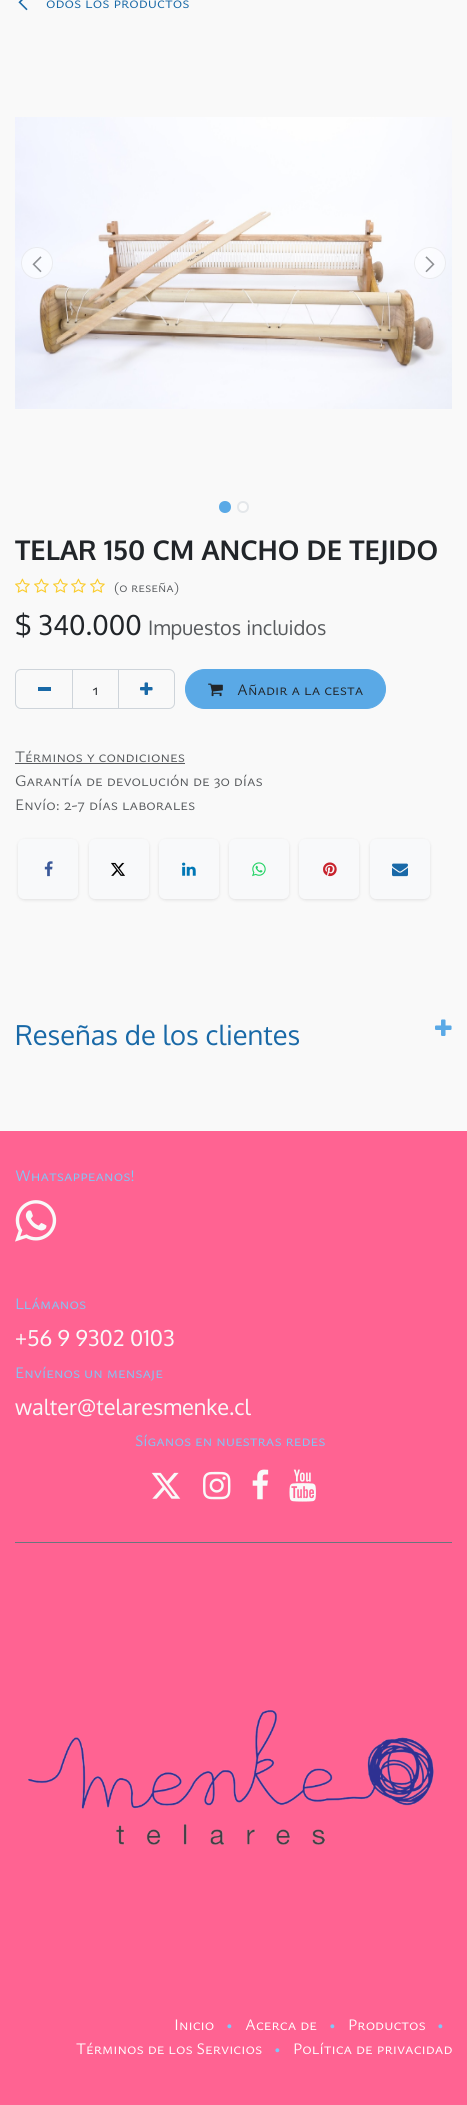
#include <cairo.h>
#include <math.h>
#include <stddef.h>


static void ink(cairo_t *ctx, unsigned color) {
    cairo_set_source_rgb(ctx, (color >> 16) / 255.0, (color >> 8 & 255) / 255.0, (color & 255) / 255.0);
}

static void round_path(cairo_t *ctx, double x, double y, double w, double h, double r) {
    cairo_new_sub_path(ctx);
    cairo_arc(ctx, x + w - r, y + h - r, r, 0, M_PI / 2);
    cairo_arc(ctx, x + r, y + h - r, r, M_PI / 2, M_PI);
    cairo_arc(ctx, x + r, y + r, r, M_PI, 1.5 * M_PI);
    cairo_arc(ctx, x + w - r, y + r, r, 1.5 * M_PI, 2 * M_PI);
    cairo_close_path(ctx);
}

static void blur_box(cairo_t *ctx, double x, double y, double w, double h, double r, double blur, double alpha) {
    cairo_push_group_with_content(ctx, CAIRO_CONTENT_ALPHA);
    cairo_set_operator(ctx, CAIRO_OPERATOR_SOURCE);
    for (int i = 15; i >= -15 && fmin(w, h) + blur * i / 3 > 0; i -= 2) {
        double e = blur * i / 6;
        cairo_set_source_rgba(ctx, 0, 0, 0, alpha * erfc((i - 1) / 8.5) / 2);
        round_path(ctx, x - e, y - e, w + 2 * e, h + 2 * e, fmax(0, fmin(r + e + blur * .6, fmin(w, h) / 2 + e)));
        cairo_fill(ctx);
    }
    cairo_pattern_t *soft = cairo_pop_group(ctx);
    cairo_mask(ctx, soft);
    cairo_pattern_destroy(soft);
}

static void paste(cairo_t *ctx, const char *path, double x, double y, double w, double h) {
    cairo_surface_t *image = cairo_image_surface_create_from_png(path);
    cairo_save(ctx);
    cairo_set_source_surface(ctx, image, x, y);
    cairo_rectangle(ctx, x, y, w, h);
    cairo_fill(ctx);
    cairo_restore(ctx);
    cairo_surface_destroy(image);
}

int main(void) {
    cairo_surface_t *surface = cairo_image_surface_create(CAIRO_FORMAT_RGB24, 467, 2105);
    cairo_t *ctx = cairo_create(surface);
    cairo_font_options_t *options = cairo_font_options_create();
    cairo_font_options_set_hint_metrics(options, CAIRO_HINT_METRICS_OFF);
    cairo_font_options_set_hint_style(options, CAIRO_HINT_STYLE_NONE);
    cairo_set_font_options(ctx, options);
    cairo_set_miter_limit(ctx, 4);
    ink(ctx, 0xF9F9F9);
    cairo_paint(ctx);
    paste(ctx, "media/1.png", 18, 0, 10, 11);
    cairo_select_font_face(ctx, "Ysabeau SC", CAIRO_FONT_SLANT_NORMAL, CAIRO_FONT_WEIGHT_NORMAL);
    cairo_set_font_size(ctx, 16);
    ink(ctx, 0x1969A7);
    cairo_move_to(ctx, 46, 8);
    cairo_show_text(ctx, "odos los productos");
    paste(ctx, "media/2.png", 15, 117, 437, 292);
    cairo_set_source_rgba(ctx, 1, 1, 1, 0.5);
    cairo_arc(ctx, 37, 263, 16, 0, 2 * M_PI);
    cairo_fill(ctx);
    cairo_arc(ctx, 37, 263, 15.5, 0, 2 * M_PI);
    cairo_set_source_rgba(ctx, 0.129, 0.145, 0.161, 0.07);
    cairo_set_line_width(ctx, 1);
    cairo_stroke(ctx);
    paste(ctx, "media/3.png", 32, 256, 10, 17);
    cairo_set_source_rgba(ctx, 1, 1, 1, 0.5);
    cairo_arc(ctx, 430, 263, 16, 0, 2 * M_PI);
    cairo_fill(ctx);
    cairo_arc(ctx, 430, 263, 15.5, 0, 2 * M_PI);
    cairo_set_source_rgba(ctx, 0.129, 0.145, 0.161, 0.07);
    cairo_stroke(ctx);
    paste(ctx, "media/4.png", 425, 256, 10, 17);
    ink(ctx, 0x5AA9E6);
    cairo_arc(ctx, 225, 507, 5, 0, 2 * M_PI);
    cairo_fill_preserve(ctx);
    cairo_set_line_width(ctx, 2);
    cairo_stroke(ctx);
    ink(ctx, 0xFCFCFC);
    cairo_arc(ctx, 243, 507, 5, 0, 2 * M_PI);
    cairo_fill_preserve(ctx);
    ink(ctx, 0xE4E7EA);
    cairo_stroke(ctx);
    cairo_select_font_face(ctx, "Oxygen", CAIRO_FONT_SLANT_NORMAL, CAIRO_FONT_WEIGHT_BOLD);
    cairo_set_font_size(ctx, 27.25);
    ink(ctx, 0x212529);
    cairo_move_to(ctx, 15, 560);
    cairo_show_text(ctx, "TELAR 150 CM ANCHO DE TEJIDO");
    paste(ctx, "media/5.png", 15, 578, 15, 15);
    paste(ctx, "media/5.png", 34, 578, 15, 15);
    paste(ctx, "media/5.png", 53, 578, 15, 15);
    paste(ctx, "media/5.png", 71, 578, 15, 15);
    paste(ctx, "media/5.png", 90, 578, 15, 15);
    cairo_select_font_face(ctx, "Ysabeau SC", CAIRO_FONT_SLANT_NORMAL, CAIRO_FONT_WEIGHT_NORMAL);
    cairo_set_font_size(ctx, 14);
    ink(ctx, 0x575A5D);
    cairo_move_to(ctx, 114, 592);
    cairo_show_text(ctx, "(0 reseña)");
    cairo_select_font_face(ctx, "Oxygen", CAIRO_FONT_SLANT_NORMAL, CAIRO_FONT_WEIGHT_NORMAL);
    cairo_set_font_size(ctx, 27.25);
    ink(ctx, 0x212529);
    cairo_move_to(ctx, 15, 635);
    cairo_show_text(ctx, "$ 340.000");
    cairo_set_font_size(ctx, 20);
    ink(ctx, 0x575A5D);
    cairo_move_to(ctx, 148, 635);
    cairo_show_text(ctx, "Impuestos incluidos");
    cairo_rectangle(ctx, 72.5, 669.5, 46, 39);
    ink(ctx, 0xCED4DA);
    cairo_set_line_width(ctx, 1);
    cairo_stroke(ctx);
    cairo_new_path(ctx);
    cairo_move_to(ctx, 21, 669.5);
    cairo_line_to(ctx, 72.5, 669.5);
    cairo_line_to(ctx, 72.5, 708.5);
    cairo_line_to(ctx, 21, 708.5);
    cairo_curve_to(ctx, 18, 708.5, 15.5, 706, 15.5, 703);
    cairo_line_to(ctx, 15.5, 675);
    cairo_curve_to(ctx, 15.5, 672, 18, 669.5, 21, 669.5);
    cairo_close_path(ctx);
    cairo_stroke(ctx);
    ink(ctx, 0x1969A7);
    cairo_rectangle(ctx, 38, 687, 13, 4);
    cairo_fill(ctx);
    cairo_select_font_face(ctx, "Ysabeau SC", CAIRO_FONT_SLANT_NORMAL, CAIRO_FONT_WEIGHT_NORMAL);
    cairo_set_font_size(ctx, 16);
    ink(ctx, 0x212529);
    cairo_move_to(ctx, 92, 695);
    cairo_show_text(ctx, "1");
    cairo_new_path(ctx);
    cairo_move_to(ctx, 118.5, 669.5);
    cairo_line_to(ctx, 169, 669.5);
    cairo_curve_to(ctx, 172, 669.5, 174.5, 672, 174.5, 675);
    cairo_line_to(ctx, 174.5, 703);
    cairo_curve_to(ctx, 174.5, 706, 172, 708.5, 169, 708.5);
    cairo_line_to(ctx, 118.5, 708.5);
    cairo_close_path(ctx);
    ink(ctx, 0xCED4DA);
    cairo_stroke(ctx);
    paste(ctx, "media/6.png", 140, 682, 13, 13);
    ink(ctx, 0x5AA9E6);
    round_path(ctx, 185.5, 669.5, 200, 39, 19.5);
    cairo_fill_preserve(ctx);
    cairo_stroke(ctx);
    paste(ctx, "media/7.png", 208, 683, 15, 14);
    ink(ctx, 0x212529);
    cairo_move_to(ctx, 237, 695);
    cairo_show_text(ctx, "Añadir a la cesta");
    ink(ctx, 0x575A5D);
    cairo_move_to(ctx, 15, 762);
    cairo_show_text(ctx, "Términos y condiciones");
    cairo_rectangle(ctx, 15, 763, 170, 1);
    cairo_fill(ctx);
    cairo_move_to(ctx, 15, 786);
    cairo_show_text(ctx, "Garantía de devolución de 30 días");
    cairo_move_to(ctx, 15, 810);
    cairo_show_text(ctx, "Envío: 2-7 días laborales");
    ink(ctx, 0x000000);
    blur_box(ctx, 18, 840, 60, 60, 6, 1.5, 0.1);
    ink(ctx, 0xF8F9FA);
    round_path(ctx, 18, 839, 60, 60, 6);
    cairo_fill(ctx);
    paste(ctx, "media/8.png", 44, 861, 9, 16);
    ink(ctx, 0x000000);
    blur_box(ctx, 89, 840, 60, 60, 6, 1.5, 0.1);
    ink(ctx, 0xF8F9FA);
    round_path(ctx, 89, 839, 60, 60, 6);
    cairo_fill(ctx);
    paste(ctx, "media/9.png", 111, 862, 14, 14);
    ink(ctx, 0x000000);
    blur_box(ctx, 159, 840, 60, 60, 6, 1.5, 0.1);
    ink(ctx, 0xF8F9FA);
    round_path(ctx, 159, 839, 60, 60, 6);
    cairo_fill(ctx);
    paste(ctx, "media/10.png", 182, 862, 14, 14);
    ink(ctx, 0x000000);
    blur_box(ctx, 229, 840, 60, 60, 6, 1.5, 0.1);
    ink(ctx, 0xF8F9FA);
    round_path(ctx, 229, 839, 60, 60, 6);
    cairo_fill(ctx);
    paste(ctx, "media/11.png", 252, 862, 14, 15);
    ink(ctx, 0x000000);
    blur_box(ctx, 299, 840, 60, 60, 6, 1.5, 0.1);
    ink(ctx, 0xF8F9FA);
    round_path(ctx, 299, 839, 60, 60, 6);
    cairo_fill(ctx);
    paste(ctx, "media/12.png", 323, 862, 14, 15);
    ink(ctx, 0x000000);
    blur_box(ctx, 370, 840, 60, 60, 6, 1.5, 0.1);
    ink(ctx, 0xF8F9FA);
    round_path(ctx, 370, 839, 60, 60, 6);
    cairo_fill(ctx);
    paste(ctx, "media/13.png", 392, 863, 16, 14);
    cairo_select_font_face(ctx, "Oxygen", CAIRO_FONT_SLANT_NORMAL, CAIRO_FONT_WEIGHT_NORMAL);
    cairo_set_font_size(ctx, 27.25);
    ink(ctx, 0x1969A7);
    cairo_move_to(ctx, 15, 1045);
    cairo_show_text(ctx, "Reseñas de los clientes");
    paste(ctx, "media/14.png", 435, 1019, 17, 17);
    ink(ctx, 0xFF6392);
    cairo_rectangle(ctx, 0, 1131, 467, 974);
    cairo_fill(ctx);
    cairo_select_font_face(ctx, "Ysabeau SC", CAIRO_FONT_SLANT_NORMAL, CAIRO_FONT_WEIGHT_NORMAL);
    cairo_set_font_size(ctx, 16);
    ink(ctx, 0x7FC8F8);
    cairo_move_to(ctx, 15, 1181);
    cairo_show_text(ctx, "Whatsappeanos!");
    paste(ctx, "media/15.png", 15, 1200, 42, 42);
    cairo_move_to(ctx, 15, 1309);
    cairo_show_text(ctx, "Llámanos");
    cairo_select_font_face(ctx, "Oxygen", CAIRO_FONT_SLANT_NORMAL, CAIRO_FONT_WEIGHT_NORMAL);
    cairo_set_font_size(ctx, 21.75);
    ink(ctx, 0xF9F9F9);
    cairo_move_to(ctx, 15, 1346);
    cairo_show_text(ctx, "+56 9 9302 0103");
    cairo_select_font_face(ctx, "Ysabeau SC", CAIRO_FONT_SLANT_NORMAL, CAIRO_FONT_WEIGHT_NORMAL);
    cairo_set_font_size(ctx, 16);
    ink(ctx, 0x7FC8F8);
    cairo_move_to(ctx, 15, 1378);
    cairo_show_text(ctx, "Envíenos un mensaje");
    cairo_select_font_face(ctx, "Oxygen", CAIRO_FONT_SLANT_NORMAL, CAIRO_FONT_WEIGHT_NORMAL);
    cairo_set_font_size(ctx, 21.75);
    ink(ctx, 0xF9F9F9);
    cairo_move_to(ctx, 15, 1415);
    cairo_show_text(ctx, "walter@telaresmenke.cl");
    cairo_select_font_face(ctx, "Ysabeau SC", CAIRO_FONT_SLANT_NORMAL, CAIRO_FONT_WEIGHT_NORMAL);
    cairo_set_font_size(ctx, 16);
    ink(ctx, 0x7FC8F8);
    cairo_move_to(ctx, 135, 1446);
    cairo_show_text(ctx, "Síganos en nuestras redes");
    paste(ctx, "media/16.png", 151, 1472, 30, 27);
    paste(ctx, "media/17.png", 203, 1471, 28, 29);
    paste(ctx, "media/18.png", 252, 1469, 17, 31);
    paste(ctx, "media/19.png", 289, 1469, 27, 33);
    ink(ctx, 0x6C757D);
    cairo_rectangle(ctx, 15, 1542, 437, 1);
    cairo_fill(ctx);
    paste(ctx, "media/20.png", 27, 1709, 407, 136);
    ink(ctx, 0xFFFFFF);
    cairo_move_to(ctx, 174, 2030);
    cairo_show_text(ctx, "Inicio");
    ink(ctx, 0x7FC8F8);
    cairo_move_to(ctx, 226, 2030);
    cairo_show_text(ctx, "•");
    ink(ctx, 0xFFFFFF);
    cairo_move_to(ctx, 245, 2030);
    cairo_show_text(ctx, "Acerca de");
    ink(ctx, 0x7FC8F8);
    cairo_move_to(ctx, 329, 2030);
    cairo_show_text(ctx, "•");
    ink(ctx, 0xFFFFFF);
    cairo_move_to(ctx, 348, 2030);
    cairo_show_text(ctx, "Productos");
    ink(ctx, 0x7FC8F8);
    cairo_move_to(ctx, 437, 2030);
    cairo_show_text(ctx, "•");
    ink(ctx, 0xFFFFFF);
    cairo_move_to(ctx, 76, 2054);
    cairo_show_text(ctx, "Términos de los Servicios");
    ink(ctx, 0x7FC8F8);
    cairo_move_to(ctx, 274, 2054);
    cairo_show_text(ctx, "•");
    ink(ctx, 0xFFFFFF);
    cairo_move_to(ctx, 293, 2054);
    cairo_show_text(ctx, "Política de privacidad");
    cairo_surface_write_to_png(surface, "image.png");
    cairo_font_options_destroy(options);
    cairo_destroy(ctx);
    cairo_surface_destroy(surface);
    return 0;
}
